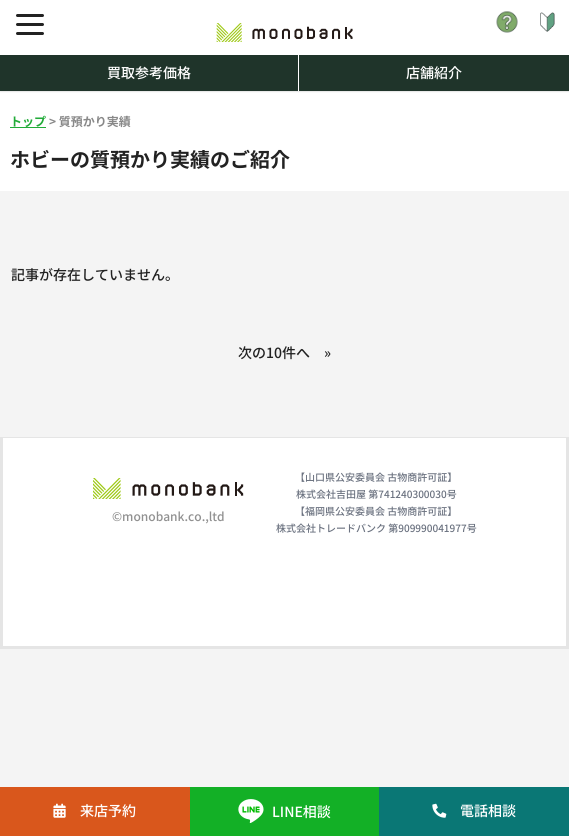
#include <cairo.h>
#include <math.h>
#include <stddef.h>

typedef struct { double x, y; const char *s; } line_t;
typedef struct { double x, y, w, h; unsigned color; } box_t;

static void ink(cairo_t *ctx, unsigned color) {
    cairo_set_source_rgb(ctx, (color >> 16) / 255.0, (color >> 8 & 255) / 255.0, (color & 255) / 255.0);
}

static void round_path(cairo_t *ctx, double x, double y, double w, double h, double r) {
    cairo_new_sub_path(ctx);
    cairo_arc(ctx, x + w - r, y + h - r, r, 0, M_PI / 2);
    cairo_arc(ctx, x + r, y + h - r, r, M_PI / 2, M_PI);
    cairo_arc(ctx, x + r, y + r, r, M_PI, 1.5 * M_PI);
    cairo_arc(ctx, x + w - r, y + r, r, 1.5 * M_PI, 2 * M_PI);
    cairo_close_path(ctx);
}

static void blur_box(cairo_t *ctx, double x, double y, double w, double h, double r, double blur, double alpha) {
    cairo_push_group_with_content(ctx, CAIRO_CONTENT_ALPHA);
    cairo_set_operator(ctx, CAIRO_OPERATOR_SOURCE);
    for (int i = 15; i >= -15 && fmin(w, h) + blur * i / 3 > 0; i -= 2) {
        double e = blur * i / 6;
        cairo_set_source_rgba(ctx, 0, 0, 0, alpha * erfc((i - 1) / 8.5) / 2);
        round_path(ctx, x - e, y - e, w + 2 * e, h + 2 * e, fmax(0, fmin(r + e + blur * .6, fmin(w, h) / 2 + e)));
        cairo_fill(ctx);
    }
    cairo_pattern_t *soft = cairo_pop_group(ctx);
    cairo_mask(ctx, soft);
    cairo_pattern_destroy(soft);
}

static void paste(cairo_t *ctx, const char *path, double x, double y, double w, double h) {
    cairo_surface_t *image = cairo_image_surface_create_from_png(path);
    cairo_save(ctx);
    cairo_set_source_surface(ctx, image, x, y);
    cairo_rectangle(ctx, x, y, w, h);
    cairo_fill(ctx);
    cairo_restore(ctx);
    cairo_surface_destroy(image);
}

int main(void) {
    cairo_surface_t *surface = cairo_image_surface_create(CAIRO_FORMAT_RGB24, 569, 836);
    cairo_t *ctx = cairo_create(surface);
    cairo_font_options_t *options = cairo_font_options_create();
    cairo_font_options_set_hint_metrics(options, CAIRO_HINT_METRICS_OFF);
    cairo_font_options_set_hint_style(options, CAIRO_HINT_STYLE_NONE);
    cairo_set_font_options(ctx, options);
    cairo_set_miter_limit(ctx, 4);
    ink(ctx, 0xF4F4F4);
    cairo_paint(ctx);
    ink(ctx, 0xFFFFFF);
    cairo_rectangle(ctx, 0, 91, 569, 100);
    cairo_fill(ctx);
    ink(ctx, 0x000000);
    blur_box(ctx, 0, 1, 569, 91, 0, 0.5, 0.1);
    ink(ctx, 0xFFFFFF);
    cairo_rectangle(ctx, 0, 0, 569, 55);
    cairo_fill(ctx);
    ink(ctx, 0x222222);
    round_path(ctx, 16, 14, 28, 3, 1.5);
    cairo_fill(ctx);
    round_path(ctx, 16, 23, 28, 3, 1.5);
    cairo_fill(ctx);
    round_path(ctx, 16, 32, 28, 3, 1.5);
    cairo_fill(ctx);
    paste(ctx, "media/1.png", 216, 23, 137, 19);
    paste(ctx, "media/2.png", 496, 11, 22, 22);
    paste(ctx, "media/3.png", 540, 12, 15, 20);
    ink(ctx, 0x1F342A);
    cairo_rectangle(ctx, 0, 55, 298, 36);
    cairo_fill(ctx);
    cairo_select_font_face(ctx, "Noto Sans JP Medium", CAIRO_FONT_SLANT_NORMAL, CAIRO_FONT_WEIGHT_NORMAL);
    cairo_set_font_size(ctx, 14);
    ink(ctx, 0xFFFFFF);
    cairo_move_to(ctx, 107, 78);
    cairo_show_text(ctx, "買取参考価格");
    ink(ctx, 0x1F342A);
    cairo_rectangle(ctx, 299, 55, 270, 36);
    cairo_fill(ctx);
    ink(ctx, 0xFFFFFF);
    cairo_rectangle(ctx, 298, 55, 1, 36);
    cairo_fill(ctx);
    cairo_move_to(ctx, 406, 78);
    cairo_show_text(ctx, "店舗紹介");
    ink(ctx, 0xD9571C);
    cairo_rectangle(ctx, 0, 787, 190, 49);
    cairo_fill(ctx);
    paste(ctx, "media/4.png", 53, 803, 13, 15);
    ink(ctx, 0xFFFFFF);
    cairo_move_to(ctx, 80, 816);
    cairo_show_text(ctx, "来店予約");
    ink(ctx, 0x13B026);
    cairo_rectangle(ctx, 190, 787, 189, 49);
    cairo_fill(ctx);
    paste(ctx, "media/5.png", 238, 799, 26, 24);
    ink(ctx, 0xFFFFFF);
    cairo_move_to(ctx, 272, 817);
    cairo_show_text(ctx, "LINE相談");
    ink(ctx, 0x0A7775);
    cairo_rectangle(ctx, 379, 787, 190, 49);
    cairo_fill(ctx);
    paste(ctx, "media/6.png", 432, 803, 15, 15);
    ink(ctx, 0xFFFFFF);
    cairo_move_to(ctx, 460, 816);
    cairo_show_text(ctx, "電話相談");
    ink(ctx, 0x22AB39);
    cairo_rectangle(ctx, 10, 127, 36, 1);
    cairo_fill(ctx);
    cairo_select_font_face(ctx, "Noto Sans JP", CAIRO_FONT_SLANT_NORMAL, CAIRO_FONT_WEIGHT_BOLD);
    cairo_set_font_size(ctx, 12);
    cairo_move_to(ctx, 10, 126);
    cairo_show_text(ctx, "トップ");
    ink(ctx, 0x888888);
    cairo_move_to(ctx, 49, 126);
    cairo_show_text(ctx, "> 質預かり実績");
    cairo_set_font_size(ctx, 20);
    ink(ctx, 0x222222);
    cairo_move_to(ctx, 10, 167);
    cairo_show_text(ctx, "ホビーの質預かり実績のご紹介");
    cairo_select_font_face(ctx, "Noto Sans JP Medium", CAIRO_FONT_SLANT_NORMAL, CAIRO_FONT_WEIGHT_NORMAL);
    cairo_set_font_size(ctx, 14);
    {
        static const line_t items[] = {
            {11, 280, "記事が存在していません。"},
            {238, 358, "次の10件へ"},
            {324, 358, "»"},
        };
        for (size_t i = 0; i < sizeof items / sizeof *items; i++) {
            cairo_move_to(ctx, items[i].x, items[i].y);
            cairo_show_text(ctx, items[i].s);
        }
    }
    {
        static const box_t items[] = {
            {3, 438, 563, 208, 0xFFFFFF},
            {0, 437, 569, 1, 0xE5E5E5},
            {566, 437, 3, 212, 0xE5E5E5},
            {0, 646, 569, 3, 0xE5E5E5},
            {0, 437, 3, 212, 0xE5E5E5},
        };
        for (size_t i = 0; i < sizeof items / sizeof *items; i++) {
            ink(ctx, items[i].color);
            cairo_rectangle(ctx, items[i].x, items[i].y, items[i].w, items[i].h);
            cairo_fill(ctx);
        }
    }
    paste(ctx, "media/7.png", 93, 478, 151, 21);
    cairo_set_font_size(ctx, 12);
    ink(ctx, 0x919191);
    cairo_move_to(ctx, 112, 521);
    cairo_show_text(ctx, "©monobank.co.,ltd");
    cairo_set_font_size(ctx, 10);
    ink(ctx, 0x6B7280);
    {
        static const line_t items[] = {
            {295, 481, "【山口県公安委員会 古物商許可証】"},
            {296, 498, "株式会社吉田屋 第741240300030号"},
            {295, 515, "【福岡県公安委員会 古物商許可証】"},
            {276, 532, "株式会社トレードバンク 第909990041977号"},
        };
        for (size_t i = 0; i < sizeof items / sizeof *items; i++) {
            cairo_move_to(ctx, items[i].x, items[i].y);
            cairo_show_text(ctx, items[i].s);
        }
    }
    cairo_surface_write_to_png(surface, "image.png");
    cairo_font_options_destroy(options);
    cairo_destroy(ctx);
    cairo_surface_destroy(surface);
    return 0;
}
